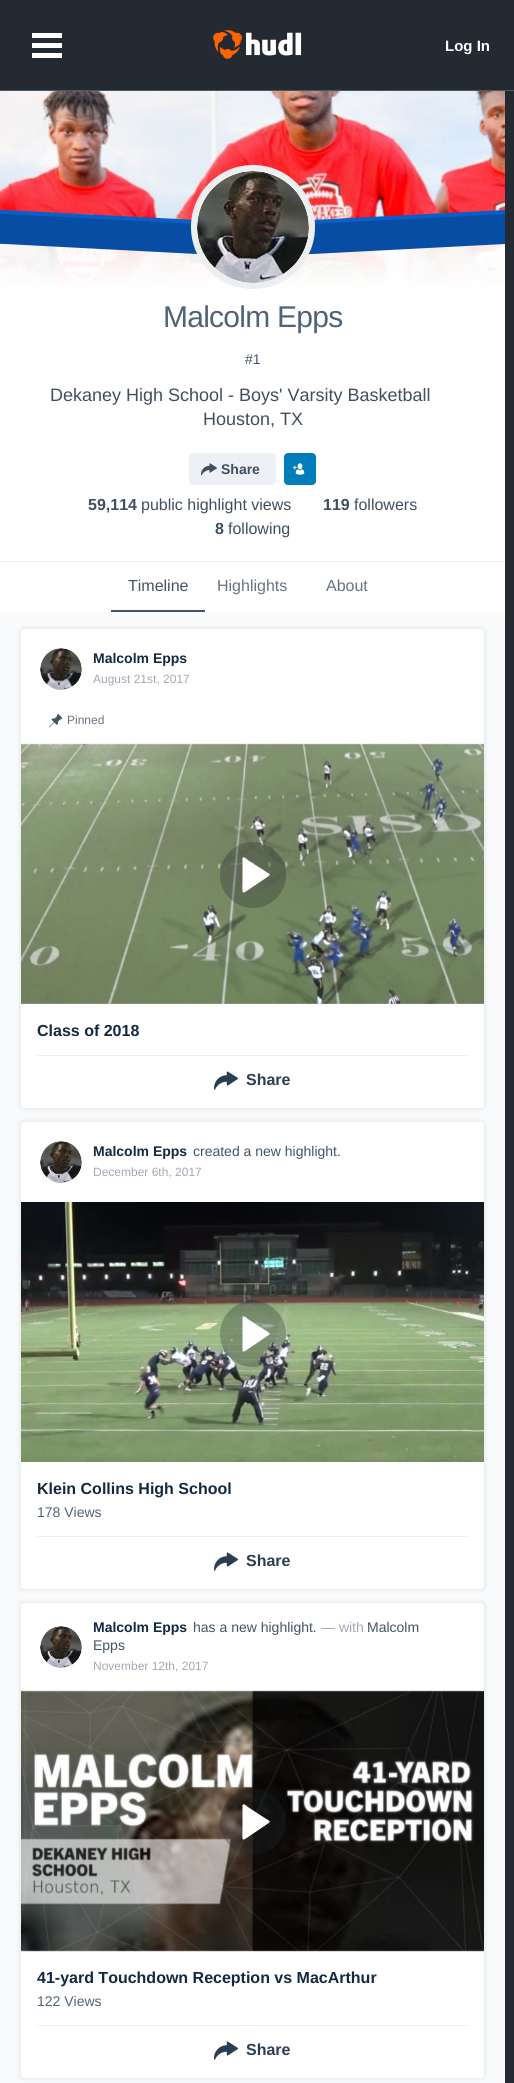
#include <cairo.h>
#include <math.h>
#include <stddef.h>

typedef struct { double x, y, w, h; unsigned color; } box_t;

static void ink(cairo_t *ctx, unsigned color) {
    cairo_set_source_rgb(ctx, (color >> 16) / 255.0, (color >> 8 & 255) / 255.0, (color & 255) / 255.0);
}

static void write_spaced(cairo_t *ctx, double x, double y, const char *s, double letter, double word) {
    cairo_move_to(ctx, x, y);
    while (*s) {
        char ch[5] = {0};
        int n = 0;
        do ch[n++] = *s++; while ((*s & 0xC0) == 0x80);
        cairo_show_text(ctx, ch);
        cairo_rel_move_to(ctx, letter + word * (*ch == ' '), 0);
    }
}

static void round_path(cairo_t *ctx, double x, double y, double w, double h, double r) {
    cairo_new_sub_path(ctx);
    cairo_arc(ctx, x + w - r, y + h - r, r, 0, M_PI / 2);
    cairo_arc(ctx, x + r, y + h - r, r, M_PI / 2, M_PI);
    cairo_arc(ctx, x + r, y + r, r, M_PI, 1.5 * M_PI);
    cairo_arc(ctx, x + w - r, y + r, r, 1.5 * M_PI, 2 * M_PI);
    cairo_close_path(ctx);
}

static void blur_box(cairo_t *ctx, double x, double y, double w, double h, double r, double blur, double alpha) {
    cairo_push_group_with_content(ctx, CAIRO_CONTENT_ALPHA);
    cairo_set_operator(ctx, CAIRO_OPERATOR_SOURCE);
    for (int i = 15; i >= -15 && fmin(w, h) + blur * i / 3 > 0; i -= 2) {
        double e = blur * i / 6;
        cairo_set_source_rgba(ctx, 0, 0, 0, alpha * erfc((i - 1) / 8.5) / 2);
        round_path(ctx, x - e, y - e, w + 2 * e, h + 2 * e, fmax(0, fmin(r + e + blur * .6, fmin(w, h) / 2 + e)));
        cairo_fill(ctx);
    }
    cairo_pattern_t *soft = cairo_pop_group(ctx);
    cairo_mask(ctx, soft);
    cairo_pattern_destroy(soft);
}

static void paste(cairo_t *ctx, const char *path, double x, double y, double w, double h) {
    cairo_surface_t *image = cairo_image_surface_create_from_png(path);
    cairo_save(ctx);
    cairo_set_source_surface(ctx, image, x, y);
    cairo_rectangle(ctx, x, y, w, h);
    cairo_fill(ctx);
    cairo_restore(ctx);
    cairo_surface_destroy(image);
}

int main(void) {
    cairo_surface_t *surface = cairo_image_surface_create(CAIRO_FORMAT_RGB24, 514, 2083);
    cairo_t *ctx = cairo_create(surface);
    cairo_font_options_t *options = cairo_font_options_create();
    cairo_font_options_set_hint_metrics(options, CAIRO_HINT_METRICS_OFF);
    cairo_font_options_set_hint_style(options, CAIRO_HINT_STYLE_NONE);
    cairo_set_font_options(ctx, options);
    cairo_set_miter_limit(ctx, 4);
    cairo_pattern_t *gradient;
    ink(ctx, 0x232A31);
    cairo_paint(ctx);
    {
        static const box_t items[] = {
            {0, 90, 514, 1, 0x4C5761},
            {32, 33, 30, 5, 0xFFFFFF},
            {32, 43, 30, 5, 0xFFFFFF},
            {32, 53, 30, 5, 0xFFFFFF},
        };
        for (size_t i = 0; i < sizeof items / sizeof *items; i++) {
            ink(ctx, items[i].color);
            cairo_rectangle(ctx, items[i].x, items[i].y, items[i].w, items[i].h);
            cairo_fill(ctx);
        }
    }
    paste(ctx, "media/1.png", 213, 30, 89, 29);
    cairo_select_font_face(ctx, "Liberation Sans", CAIRO_FONT_SLANT_NORMAL, CAIRO_FONT_WEIGHT_BOLD);
    cairo_set_font_size(ctx, 15);
    cairo_move_to(ctx, 445, 51);
    cairo_show_text(ctx, "Log In");
    paste(ctx, "media/2.png", 0, 91, 505, 196);
    gradient = cairo_pattern_create_linear(252, 221, 253, 561);
    cairo_pattern_add_color_stop_rgba(gradient, 0, 1, 1, 1, 0.85);
    cairo_pattern_add_color_stop_rgba(gradient, 0.2, 1, 1, 1, 1);
    cairo_set_source(ctx, gradient);
    cairo_pattern_destroy(gradient);
    cairo_rectangle(ctx, 0, 243, 505, 318);
    cairo_fill(ctx);
    ink(ctx, 0xEDF0F2);
    cairo_rectangle(ctx, 0, 561, 505, 1);
    cairo_fill(ctx);
    cairo_save(ctx);
    cairo_rectangle(ctx, 0, 203, 505, 50);
    cairo_clip(ctx);
    ink(ctx, 0x095FC8);
    cairo_set_fill_rule(ctx, CAIRO_FILL_RULE_EVEN_ODD);
    cairo_new_path(ctx);
    cairo_move_to(ctx, -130, 203);
    cairo_line_to(ctx, 254, 223);
    cairo_line_to(ctx, 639, 203);
    cairo_line_to(ctx, 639, 233);
    cairo_line_to(ctx, 254, 253);
    cairo_line_to(ctx, -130, 233);
    cairo_close_path(ctx);
    cairo_fill(ctx);
    cairo_restore(ctx);
    cairo_save(ctx);
    cairo_rectangle(ctx, 0, 207, 505, 50);
    cairo_clip(ctx);
    ink(ctx, 0x084DA4);
    cairo_set_fill_rule(ctx, CAIRO_FILL_RULE_EVEN_ODD);
    cairo_new_path(ctx);
    cairo_move_to(ctx, -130, 207);
    cairo_line_to(ctx, 254, 227);
    cairo_line_to(ctx, 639, 207);
    cairo_line_to(ctx, 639, 237);
    cairo_line_to(ctx, 254, 257);
    cairo_line_to(ctx, -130, 237);
    cairo_close_path(ctx);
    cairo_fill(ctx);
    cairo_restore(ctx);
    ink(ctx, 0xFFFFFF);
    cairo_arc(ctx, 253, 227, 62, 0, 2 * M_PI);
    cairo_fill(ctx);
    cairo_arc(ctx, 253, 227, 59, 0, 2 * M_PI);
    cairo_set_source_rgba(ctx, 0.271, 0.322, 0.369, 0.1);
    cairo_set_line_width(ctx, 6);
    cairo_stroke(ctx);
    paste(ctx, "media/3.png", 197, 171, 112, 112);
    cairo_select_font_face(ctx, "Liberation Sans", CAIRO_FONT_SLANT_NORMAL, CAIRO_FONT_WEIGHT_NORMAL);
    cairo_set_font_size(ctx, 30);
    ink(ctx, 0x506277);
    write_spaced(ctx, 163, 327, "Malcolm Epps", -0.75, 0);
    cairo_set_font_size(ctx, 14);
    ink(ctx, 0x425465);
    cairo_move_to(ctx, 245, 364);
    cairo_show_text(ctx, "#1");
    cairo_set_font_size(ctx, 18);
    ink(ctx, 0x3F4F5F);
    cairo_move_to(ctx, 50, 401);
    cairo_show_text(ctx, "Dekaney High School - Boys' Varsity Basketball");
    cairo_move_to(ctx, 203, 425);
    cairo_show_text(ctx, "Houston, TX");
    ink(ctx, 0xEDF1F5);
    round_path(ctx, 189, 453, 87, 32, 4);
    cairo_fill(ctx);
    paste(ctx, "media/4.png", 201, 463, 16, 13);
    cairo_select_font_face(ctx, "Liberation Sans", CAIRO_FONT_SLANT_NORMAL, CAIRO_FONT_WEIGHT_BOLD);
    cairo_set_font_size(ctx, 14);
    ink(ctx, 0x3F4F5F);
    cairo_move_to(ctx, 221, 474);
    cairo_show_text(ctx, "Share");
    ink(ctx, 0x027DBB);
    round_path(ctx, 284, 453, 32, 32, 4);
    cairo_fill(ctx);
    paste(ctx, "media/5.png", 292, 463, 13, 12);
    cairo_set_font_size(ctx, 16);
    ink(ctx, 0x3F4F5F);
    cairo_move_to(ctx, 88, 510);
    cairo_show_text(ctx, "59,114");
    cairo_select_font_face(ctx, "Liberation Sans", CAIRO_FONT_SLANT_NORMAL, CAIRO_FONT_WEIGHT_NORMAL);
    cairo_move_to(ctx, 141, 510);
    cairo_show_text(ctx, "public highlight views");
    cairo_select_font_face(ctx, "Liberation Sans", CAIRO_FONT_SLANT_NORMAL, CAIRO_FONT_WEIGHT_BOLD);
    cairo_move_to(ctx, 323, 510);
    cairo_show_text(ctx, "119");
    cairo_select_font_face(ctx, "Liberation Sans", CAIRO_FONT_SLANT_NORMAL, CAIRO_FONT_WEIGHT_NORMAL);
    cairo_move_to(ctx, 354, 510);
    cairo_show_text(ctx, "followers");
    cairo_select_font_face(ctx, "Liberation Sans", CAIRO_FONT_SLANT_NORMAL, CAIRO_FONT_WEIGHT_BOLD);
    cairo_move_to(ctx, 215, 534);
    cairo_show_text(ctx, "8");
    cairo_select_font_face(ctx, "Liberation Sans", CAIRO_FONT_SLANT_NORMAL, CAIRO_FONT_WEIGHT_NORMAL);
    cairo_move_to(ctx, 228, 534);
    cairo_show_text(ctx, "following");
    ink(ctx, 0xFFFFFF);
    cairo_rectangle(ctx, 0, 562, 505, 50);
    cairo_fill(ctx);
    ink(ctx, 0x425465);
    cairo_rectangle(ctx, 111, 610, 94, 2);
    cairo_fill(ctx);
    cairo_move_to(ctx, 128, 591);
    cairo_show_text(ctx, "Timeline");
    ink(ctx, 0x667482);
    cairo_move_to(ctx, 217, 591);
    cairo_show_text(ctx, "Highlights");
    cairo_move_to(ctx, 326, 591);
    cairo_show_text(ctx, "About");
    ink(ctx, 0xF9FAFB);
    cairo_rectangle(ctx, 0, 612, 505, 1471);
    cairo_fill(ctx);
    ink(ctx, 0x000000);
    blur_box(ctx, 20, 628, 465, 481, 4, 2, 0.1);
    ink(ctx, 0xFFFFFF);
    round_path(ctx, 20.5, 628.5, 464, 480, 3.5);
    cairo_fill_preserve(ctx);
    ink(ctx, 0xEDF0F2);
    cairo_set_line_width(ctx, 1);
    cairo_stroke(ctx);
    paste(ctx, "media/6.png", 40, 648, 42, 42);
    cairo_select_font_face(ctx, "Liberation Sans", CAIRO_FONT_SLANT_NORMAL, CAIRO_FONT_WEIGHT_BOLD);
    cairo_set_font_size(ctx, 14);
    ink(ctx, 0x13293F);
    cairo_move_to(ctx, 93, 663);
    cairo_show_text(ctx, "Malcolm Epps");
    cairo_select_font_face(ctx, "Liberation Sans", CAIRO_FONT_SLANT_NORMAL, CAIRO_FONT_WEIGHT_NORMAL);
    cairo_set_font_size(ctx, 12);
    ink(ctx, 0xA1A9B2);
    cairo_move_to(ctx, 93, 683);
    cairo_show_text(ctx, "August 21st, 2017");
    paste(ctx, "media/7.png", 49, 714, 13, 14);
    ink(ctx, 0x667482);
    cairo_move_to(ctx, 67, 724);
    cairo_show_text(ctx, "Pinned");
    paste(ctx, "media/8.png", 21, 743, 463, 261);
    cairo_set_source_rgba(ctx, 0.137, 0.165, 0.192, 0.3);
    cairo_arc(ctx, 253, 875, 33, 0, 2 * M_PI);
    cairo_fill(ctx);
    ink(ctx, 0xFFFFFF);
    cairo_set_fill_rule(ctx, CAIRO_FILL_RULE_EVEN_ODD);
    cairo_new_path(ctx);
    cairo_move_to(ctx, 242.5, 858);
    cairo_line_to(ctx, 242.5, 880.5);
    cairo_curve_to(ctx, 242.5, 895.5, 240.5, 895, 252.5, 887);
    cairo_line_to(ctx, 269.5, 875.5);
    cairo_curve_to(ctx, 269.5, 875, 269.5, 874.5, 269.5, 874);
    cairo_line_to(ctx, 248.5, 860.5);
    cairo_curve_to(ctx, 246.5, 859, 244, 856, 242.5, 858);
    cairo_close_path(ctx);
    cairo_fill(ctx);
    cairo_select_font_face(ctx, "Liberation Sans", CAIRO_FONT_SLANT_NORMAL, CAIRO_FONT_WEIGHT_BOLD);
    cairo_set_font_size(ctx, 16);
    ink(ctx, 0x13293F);
    cairo_move_to(ctx, 37, 1036);
    cairo_show_text(ctx, "Class of 2018");
    ink(ctx, 0xEDF0F2);
    cairo_rectangle(ctx, 37, 1055, 431, 1);
    cairo_fill(ctx);
    paste(ctx, "media/9.png", 214, 1071, 24, 19);
    ink(ctx, 0x2B3E52);
    cairo_move_to(ctx, 246, 1085);
    cairo_show_text(ctx, "Share");
    ink(ctx, 0x000000);
    blur_box(ctx, 20, 1121, 465, 469, 4, 2, 0.1);
    ink(ctx, 0xFFFFFF);
    round_path(ctx, 20.5, 1121.5, 464, 468, 3.5);
    cairo_fill_preserve(ctx);
    ink(ctx, 0xEDF0F2);
    cairo_stroke(ctx);
    paste(ctx, "media/10.png", 40, 1141, 42, 42);
    cairo_set_font_size(ctx, 14);
    ink(ctx, 0x13293F);
    cairo_move_to(ctx, 93, 1156);
    cairo_show_text(ctx, "Malcolm Epps");
    cairo_select_font_face(ctx, "Liberation Sans", CAIRO_FONT_SLANT_NORMAL, CAIRO_FONT_WEIGHT_NORMAL);
    ink(ctx, 0x425465);
    cairo_move_to(ctx, 193, 1156);
    cairo_show_text(ctx, "created a new highlight.");
    cairo_set_font_size(ctx, 12);
    ink(ctx, 0xA1A9B2);
    cairo_move_to(ctx, 93, 1176);
    cairo_show_text(ctx, "December 6th, 2017");
    paste(ctx, "media/11.png", 21, 1202, 463, 260);
    cairo_set_source_rgba(ctx, 0.137, 0.165, 0.192, 0.3);
    cairo_arc(ctx, 253, 1334, 33, 0, 2 * M_PI);
    cairo_fill(ctx);
    ink(ctx, 0xFFFFFF);
    cairo_new_path(ctx);
    cairo_move_to(ctx, 242.5, 1317);
    cairo_line_to(ctx, 242.5, 1339.5);
    cairo_curve_to(ctx, 242.5, 1354.5, 240.5, 1354, 252.5, 1346);
    cairo_line_to(ctx, 269.5, 1334.5);
    cairo_curve_to(ctx, 269.5, 1334, 269.5, 1333.5, 269.5, 1333);
    cairo_line_to(ctx, 248.5, 1319.5);
    cairo_curve_to(ctx, 246.5, 1318, 244, 1315, 242.5, 1317);
    cairo_close_path(ctx);
    cairo_fill(ctx);
    cairo_select_font_face(ctx, "Liberation Sans", CAIRO_FONT_SLANT_NORMAL, CAIRO_FONT_WEIGHT_BOLD);
    cairo_set_font_size(ctx, 16);
    ink(ctx, 0x13293F);
    cairo_move_to(ctx, 37, 1494);
    cairo_show_text(ctx, "Klein Collins High School");
    cairo_select_font_face(ctx, "Liberation Sans", CAIRO_FONT_SLANT_NORMAL, CAIRO_FONT_WEIGHT_NORMAL);
    cairo_set_font_size(ctx, 14);
    ink(ctx, 0x506277);
    cairo_move_to(ctx, 37, 1517);
    cairo_show_text(ctx, "178 Views");
    ink(ctx, 0xEDF0F2);
    cairo_rectangle(ctx, 37, 1536, 431, 1);
    cairo_fill(ctx);
    paste(ctx, "media/9.png", 214, 1552, 24, 19);
    cairo_select_font_face(ctx, "Liberation Sans", CAIRO_FONT_SLANT_NORMAL, CAIRO_FONT_WEIGHT_BOLD);
    cairo_set_font_size(ctx, 16);
    ink(ctx, 0x2B3E52);
    cairo_move_to(ctx, 246, 1566);
    cairo_show_text(ctx, "Share");
    ink(ctx, 0x000000);
    blur_box(ctx, 20, 1602, 465, 477, 4, 2, 0.1);
    ink(ctx, 0xFFFFFF);
    round_path(ctx, 20.5, 1602.5, 464, 476, 3.5);
    cairo_fill_preserve(ctx);
    ink(ctx, 0xEDF0F2);
    cairo_stroke(ctx);
    paste(ctx, "media/12.png", 40, 1626, 42, 42);
    cairo_set_font_size(ctx, 14);
    ink(ctx, 0x13293F);
    cairo_move_to(ctx, 93, 1632);
    cairo_show_text(ctx, "Malcolm Epps");
    cairo_select_font_face(ctx, "Liberation Sans", CAIRO_FONT_SLANT_NORMAL, CAIRO_FONT_WEIGHT_NORMAL);
    ink(ctx, 0x425465);
    cairo_move_to(ctx, 193, 1632);
    cairo_show_text(ctx, "has a new highlight.");
    ink(ctx, 0xA1A9B2);
    cairo_move_to(ctx, 321, 1632);
    cairo_show_text(ctx, "— with");
    ink(ctx, 0x425465);
    cairo_move_to(ctx, 367, 1632);
    cairo_show_text(ctx, "Malcolm");
    cairo_move_to(ctx, 93, 1650);
    cairo_show_text(ctx, "Epps");
    cairo_set_font_size(ctx, 12);
    ink(ctx, 0xA1A9B2);
    cairo_move_to(ctx, 93, 1670);
    cairo_show_text(ctx, "November 12th, 2017");
    paste(ctx, "media/13.png", 21, 1690, 463, 262);
    cairo_set_source_rgba(ctx, 0.137, 0.165, 0.192, 0.3);
    cairo_arc(ctx, 253, 1822, 33, 0, 2 * M_PI);
    cairo_fill(ctx);
    ink(ctx, 0xFFFFFF);
    cairo_new_path(ctx);
    cairo_move_to(ctx, 242.5, 1805);
    cairo_line_to(ctx, 242.5, 1827.5);
    cairo_curve_to(ctx, 242.5, 1842.5, 240.5, 1842, 252.5, 1834);
    cairo_line_to(ctx, 269.5, 1822.5);
    cairo_curve_to(ctx, 269.5, 1822, 269.5, 1821.5, 269.5, 1821);
    cairo_line_to(ctx, 248.5, 1807.5);
    cairo_curve_to(ctx, 246.5, 1806, 244, 1803, 242.5, 1805);
    cairo_close_path(ctx);
    cairo_fill(ctx);
    cairo_select_font_face(ctx, "Liberation Sans", CAIRO_FONT_SLANT_NORMAL, CAIRO_FONT_WEIGHT_BOLD);
    cairo_set_font_size(ctx, 16);
    ink(ctx, 0x13293F);
    cairo_move_to(ctx, 37, 1983);
    cairo_show_text(ctx, "41-yard Touchdown Reception vs MacArthur");
    cairo_select_font_face(ctx, "Liberation Sans", CAIRO_FONT_SLANT_NORMAL, CAIRO_FONT_WEIGHT_NORMAL);
    cairo_set_font_size(ctx, 14);
    ink(ctx, 0x506277);
    cairo_move_to(ctx, 37, 2006);
    cairo_show_text(ctx, "122 Views");
    ink(ctx, 0xEDF0F2);
    cairo_rectangle(ctx, 37, 2025, 431, 1);
    cairo_fill(ctx);
    paste(ctx, "media/9.png", 214, 2041, 24, 19);
    cairo_select_font_face(ctx, "Liberation Sans", CAIRO_FONT_SLANT_NORMAL, CAIRO_FONT_WEIGHT_BOLD);
    cairo_set_font_size(ctx, 16);
    ink(ctx, 0x2B3E52);
    cairo_move_to(ctx, 246, 2055);
    cairo_show_text(ctx, "Share");
    cairo_surface_write_to_png(surface, "image.png");
    cairo_font_options_destroy(options);
    cairo_destroy(ctx);
    cairo_surface_destroy(surface);
    return 0;
}
